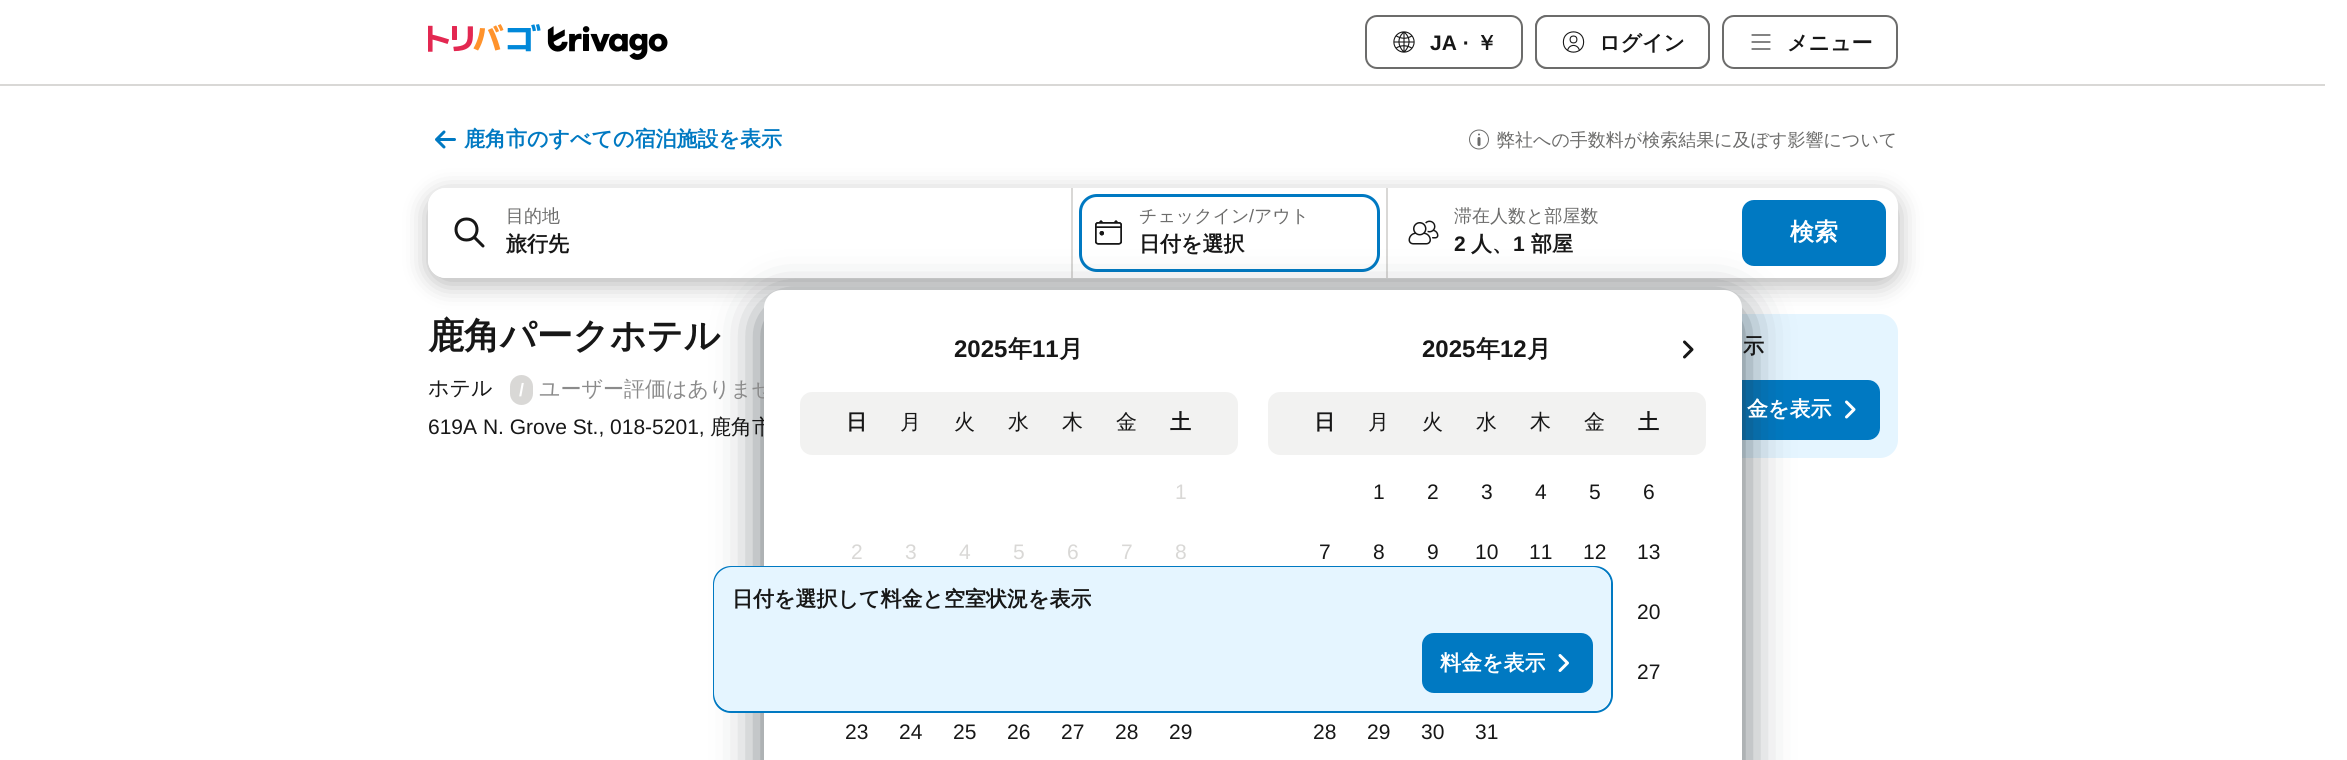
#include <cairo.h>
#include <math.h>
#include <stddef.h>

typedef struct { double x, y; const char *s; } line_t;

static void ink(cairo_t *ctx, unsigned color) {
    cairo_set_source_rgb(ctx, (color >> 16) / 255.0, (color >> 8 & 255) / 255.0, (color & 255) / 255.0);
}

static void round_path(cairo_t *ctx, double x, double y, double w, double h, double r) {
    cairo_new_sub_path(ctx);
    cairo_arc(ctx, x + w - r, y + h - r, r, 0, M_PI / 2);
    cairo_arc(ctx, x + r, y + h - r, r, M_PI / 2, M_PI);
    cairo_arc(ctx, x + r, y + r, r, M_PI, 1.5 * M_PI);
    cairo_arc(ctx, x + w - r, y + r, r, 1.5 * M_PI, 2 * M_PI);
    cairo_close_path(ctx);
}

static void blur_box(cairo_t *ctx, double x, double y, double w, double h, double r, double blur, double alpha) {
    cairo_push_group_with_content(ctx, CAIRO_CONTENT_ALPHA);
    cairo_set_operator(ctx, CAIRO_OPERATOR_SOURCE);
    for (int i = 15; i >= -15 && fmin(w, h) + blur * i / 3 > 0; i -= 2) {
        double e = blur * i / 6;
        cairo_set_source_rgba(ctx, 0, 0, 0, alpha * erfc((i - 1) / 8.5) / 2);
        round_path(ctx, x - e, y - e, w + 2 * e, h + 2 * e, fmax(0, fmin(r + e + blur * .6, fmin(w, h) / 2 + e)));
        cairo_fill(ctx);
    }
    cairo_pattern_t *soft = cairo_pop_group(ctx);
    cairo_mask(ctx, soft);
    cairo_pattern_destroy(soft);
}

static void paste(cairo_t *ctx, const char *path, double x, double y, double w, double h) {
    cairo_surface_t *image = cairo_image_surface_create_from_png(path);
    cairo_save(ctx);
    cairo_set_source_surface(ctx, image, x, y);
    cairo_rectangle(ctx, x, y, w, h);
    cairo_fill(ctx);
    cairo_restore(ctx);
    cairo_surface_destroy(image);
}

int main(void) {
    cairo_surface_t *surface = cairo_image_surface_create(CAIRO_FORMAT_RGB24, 2347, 760);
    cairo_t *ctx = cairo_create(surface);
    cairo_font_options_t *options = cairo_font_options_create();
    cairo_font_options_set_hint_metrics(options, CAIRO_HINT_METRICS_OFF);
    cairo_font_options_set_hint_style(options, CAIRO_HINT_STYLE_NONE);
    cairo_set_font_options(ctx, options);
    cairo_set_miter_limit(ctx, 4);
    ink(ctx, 0xFFFFFF);
    cairo_paint(ctx);
    paste(ctx, "media/1.png", 428, 24, 240, 36);
    round_path(ctx, 1366, 16, 156, 52, 11);
    ink(ctx, 0x6C6C6B);
    cairo_stroke(ctx);
    paste(ctx, "media/2.png", 1393, 31, 22, 22);
    cairo_select_font_face(ctx, "Liberation Sans", CAIRO_FONT_SLANT_NORMAL, CAIRO_FONT_WEIGHT_BOLD);
    cairo_set_font_size(ctx, 21);
    ink(ctx, 0x171717);
    cairo_move_to(ctx, 1430, 50);
    cairo_show_text(ctx, "JA ·");
    cairo_select_font_face(ctx, "WenQuanYi Zen Hei", CAIRO_FONT_SLANT_NORMAL, CAIRO_FONT_WEIGHT_BOLD);
    cairo_move_to(ctx, 1476, 50);
    cairo_show_text(ctx, "￥");
    round_path(ctx, 1536, 16, 173, 52, 11);
    ink(ctx, 0x6C6C6B);
    cairo_stroke(ctx);
    ink(ctx, 0xFFFFFF);
    round_path(ctx, 1536, 16, 173, 52, 11);
    cairo_fill_preserve(ctx);
    ink(ctx, 0x6C6C6B);
    cairo_stroke(ctx);
    paste(ctx, "media/3.png", 1562, 31, 23, 22);
    ink(ctx, 0x171717);
    cairo_move_to(ctx, 1599, 50);
    cairo_show_text(ctx, "ログイン");
    round_path(ctx, 1723, 16, 174, 52, 11);
    ink(ctx, 0x6C6C6B);
    cairo_stroke(ctx);
    cairo_new_path(ctx);
    cairo_move_to(ctx, 1752, 35);
    cairo_line_to(ctx, 1770, 35);
    cairo_move_to(ctx, 1752, 42);
    cairo_line_to(ctx, 1770, 42);
    cairo_move_to(ctx, 1752, 49);
    cairo_line_to(ctx, 1770, 49);
    ink(ctx, 0x171717);
    cairo_set_line_width(ctx, 1.1);
    cairo_set_line_cap(ctx, CAIRO_LINE_CAP_ROUND);
    cairo_stroke(ctx);
    cairo_move_to(ctx, 1787, 50);
    cairo_show_text(ctx, "メニュー");
    ink(ctx, 0xD9D8D6);
    cairo_rectangle(ctx, 0, 84, 2325, 2);
    cairo_fill(ctx);
    cairo_new_path(ctx);
    cairo_move_to(ctx, 444, 147);
    cairo_line_to(ctx, 436.5, 139.5);
    cairo_move_to(ctx, 444, 132);
    cairo_line_to(ctx, 436.5, 139.5);
    cairo_move_to(ctx, 454.5, 139.5);
    cairo_line_to(ctx, 436.5, 139.5);
    ink(ctx, 0x0079C2);
    cairo_set_line_width(ctx, 3);
    cairo_stroke(ctx);
    cairo_move_to(ctx, 464, 146);
    cairo_show_text(ctx, "鹿角市のすべての宿泊施設を表示");
    cairo_new_path(ctx);
    cairo_arc(ctx, 1479, 139.5, 9.5, 0, 2 * M_PI);
    ink(ctx, 0x6C6C6B);
    cairo_set_line_width(ctx, 1);
    cairo_set_line_cap(ctx, CAIRO_LINE_CAP_BUTT);
    cairo_stroke(ctx);
    cairo_new_path(ctx);
    cairo_move_to(ctx, 1479, 138.5);
    cairo_line_to(ctx, 1479, 144.5);
    cairo_set_line_width(ctx, 3);
    cairo_set_line_cap(ctx, CAIRO_LINE_CAP_ROUND);
    cairo_stroke(ctx);
    cairo_arc(ctx, 1479, 134.5, 1, 0, 2 * M_PI);
    cairo_fill(ctx);
    cairo_select_font_face(ctx, "WenQuanYi Zen Hei Medium", CAIRO_FONT_SLANT_NORMAL, CAIRO_FONT_WEIGHT_NORMAL);
    cairo_set_font_size(ctx, 18);
    cairo_move_to(ctx, 1497, 146);
    cairo_show_text(ctx, "弊社への手数料が検索結果に及ぼす影響について");
    ink(ctx, 0xE5F5FF);
    round_path(ctx, 1386, 314, 512, 144, 18);
    cairo_fill(ctx);
    ink(ctx, 0x000000);
    blur_box(ctx, 428, 194, 1470, 90, 18, 12, 0.3);
    ink(ctx, 0xFFFFFF);
    round_path(ctx, 428, 188, 1470, 90, 18);
    cairo_fill(ctx);
    cairo_new_path(ctx);
    cairo_move_to(ctx, 446, 188);
    cairo_line_to(ctx, 1071, 188);
    cairo_line_to(ctx, 1071, 278);
    cairo_line_to(ctx, 446, 278);
    cairo_curve_to(ctx, 436, 278, 428, 270, 428, 260);
    cairo_line_to(ctx, 428, 206);
    cairo_curve_to(ctx, 428, 196, 436, 188, 446, 188);
    cairo_close_path(ctx);
    cairo_fill(ctx);
    cairo_new_path(ctx);
    cairo_move_to(ctx, 466.5, 219);
    cairo_curve_to(ctx, 452.5, 219, 452.5, 240, 466.5, 240);
    cairo_curve_to(ctx, 480.5, 240, 480.5, 219, 466.5, 219);
    cairo_close_path(ctx);
    cairo_move_to(ctx, 483, 246);
    cairo_line_to(ctx, 474, 237);
    ink(ctx, 0x171717);
    cairo_stroke(ctx);
    ink(ctx, 0x6C6C6B);
    cairo_move_to(ctx, 506, 222);
    cairo_show_text(ctx, "目的地");
    cairo_select_font_face(ctx, "WenQuanYi Zen Hei", CAIRO_FONT_SLANT_NORMAL, CAIRO_FONT_WEIGHT_BOLD);
    cairo_set_font_size(ctx, 21);
    ink(ctx, 0x171717);
    cairo_move_to(ctx, 506, 251);
    cairo_show_text(ctx, "旅行先");
    ink(ctx, 0xD9D8D6);
    cairo_rectangle(ctx, 1071, 188, 2, 90);
    cairo_fill(ctx);
    round_path(ctx, 1080.5, 195.5, 298, 75, 16.5);
    ink(ctx, 0x0079C2);
    cairo_set_line_cap(ctx, CAIRO_LINE_CAP_BUTT);
    cairo_stroke(ctx);
    paste(ctx, "media/4.png", 1095, 220, 27, 25);
    cairo_select_font_face(ctx, "WenQuanYi Zen Hei Medium", CAIRO_FONT_SLANT_NORMAL, CAIRO_FONT_WEIGHT_NORMAL);
    cairo_set_font_size(ctx, 18);
    ink(ctx, 0x6C6C6B);
    cairo_move_to(ctx, 1139, 222);
    cairo_show_text(ctx, "チェックイン");
    cairo_select_font_face(ctx, "Liberation Sans", CAIRO_FONT_SLANT_NORMAL, CAIRO_FONT_WEIGHT_NORMAL);
    cairo_move_to(ctx, 1249, 222);
    cairo_show_text(ctx, "/");
    cairo_select_font_face(ctx, "WenQuanYi Zen Hei Medium", CAIRO_FONT_SLANT_NORMAL, CAIRO_FONT_WEIGHT_NORMAL);
    cairo_move_to(ctx, 1254, 222);
    cairo_show_text(ctx, "アウト");
    cairo_select_font_face(ctx, "WenQuanYi Zen Hei", CAIRO_FONT_SLANT_NORMAL, CAIRO_FONT_WEIGHT_BOLD);
    cairo_set_font_size(ctx, 21);
    ink(ctx, 0x171717);
    cairo_move_to(ctx, 1139, 251);
    cairo_show_text(ctx, "日付を選択");
    ink(ctx, 0xD9D8D6);
    cairo_rectangle(ctx, 1386, 188, 2, 90);
    cairo_fill(ctx);
    paste(ctx, "media/5.png", 1408, 220, 31, 25);
    cairo_select_font_face(ctx, "WenQuanYi Zen Hei Medium", CAIRO_FONT_SLANT_NORMAL, CAIRO_FONT_WEIGHT_NORMAL);
    cairo_set_font_size(ctx, 18);
    ink(ctx, 0x6C6C6B);
    cairo_move_to(ctx, 1454, 222);
    cairo_show_text(ctx, "滞在人数と部屋数");
    cairo_select_font_face(ctx, "Liberation Sans", CAIRO_FONT_SLANT_NORMAL, CAIRO_FONT_WEIGHT_BOLD);
    cairo_set_font_size(ctx, 21);
    ink(ctx, 0x171717);
    cairo_move_to(ctx, 1454, 251);
    cairo_show_text(ctx, "2");
    cairo_select_font_face(ctx, "WenQuanYi Zen Hei", CAIRO_FONT_SLANT_NORMAL, CAIRO_FONT_WEIGHT_BOLD);
    cairo_move_to(ctx, 1471, 251);
    cairo_show_text(ctx, "人、");
    cairo_select_font_face(ctx, "Liberation Sans", CAIRO_FONT_SLANT_NORMAL, CAIRO_FONT_WEIGHT_BOLD);
    cairo_move_to(ctx, 1513, 251);
    cairo_show_text(ctx, "1");
    cairo_select_font_face(ctx, "WenQuanYi Zen Hei", CAIRO_FONT_SLANT_NORMAL, CAIRO_FONT_WEIGHT_BOLD);
    cairo_move_to(ctx, 1531, 251);
    cairo_show_text(ctx, "部屋");
    ink(ctx, 0x0079C2);
    round_path(ctx, 1742, 200, 144, 66, 12);
    cairo_fill(ctx);
    cairo_set_font_size(ctx, 24);
    ink(ctx, 0xFFFFFF);
    cairo_move_to(ctx, 1790, 240);
    cairo_show_text(ctx, "検索");
    ink(ctx, 0x0079C2);
    round_path(ctx, 1709, 380, 171, 60, 12);
    cairo_fill(ctx);
    ink(ctx, 0x293339);
    blur_box(ctx, 764, 305, 978, 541, 18, 22.5, 0.75);
    cairo_select_font_face(ctx, "WenQuanYi Zen Hei Medium", CAIRO_FONT_SLANT_NORMAL, CAIRO_FONT_WEIGHT_NORMAL);
    cairo_set_font_size(ctx, 21);
    ink(ctx, 0x8B8B8B);
    cairo_move_to(ctx, 539, 396);
    cairo_show_text(ctx, "ユーザー評価はありませ");
    ink(ctx, 0x171717);
    cairo_move_to(ctx, 710, 434);
    cairo_show_text(ctx, "鹿角市");
    ink(ctx, 0xFFFFFF);
    round_path(ctx, 764, 290, 978, 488, 18);
    cairo_fill(ctx);
    cairo_select_font_face(ctx, "Liberation Sans", CAIRO_FONT_SLANT_NORMAL, CAIRO_FONT_WEIGHT_BOLD);
    cairo_set_font_size(ctx, 24);
    ink(ctx, 0x171717);
    cairo_move_to(ctx, 954, 357);
    cairo_show_text(ctx, "2025");
    cairo_select_font_face(ctx, "WenQuanYi Zen Hei", CAIRO_FONT_SLANT_NORMAL, CAIRO_FONT_WEIGHT_BOLD);
    cairo_move_to(ctx, 1008, 357);
    cairo_show_text(ctx, "年");
    cairo_select_font_face(ctx, "Liberation Sans", CAIRO_FONT_SLANT_NORMAL, CAIRO_FONT_WEIGHT_BOLD);
    cairo_move_to(ctx, 1032, 357);
    cairo_show_text(ctx, "11");
    cairo_select_font_face(ctx, "WenQuanYi Zen Hei", CAIRO_FONT_SLANT_NORMAL, CAIRO_FONT_WEIGHT_BOLD);
    cairo_move_to(ctx, 1059, 357);
    cairo_show_text(ctx, "月");
    ink(ctx, 0xF2F2F1);
    round_path(ctx, 800, 392, 438, 63, 12);
    cairo_fill(ctx);
    cairo_set_font_size(ctx, 21);
    ink(ctx, 0x171717);
    cairo_move_to(ctx, 846, 429);
    cairo_show_text(ctx, "日");
    cairo_select_font_face(ctx, "WenQuanYi Zen Hei Medium", CAIRO_FONT_SLANT_NORMAL, CAIRO_FONT_WEIGHT_NORMAL);
    {
        static const line_t items[] = {
            {900, 429, "月"},
            {954, 429, "火"},
            {1008, 429, "水"},
            {1062, 429, "木"},
            {1116, 429, "金"},
        };
        for (size_t i = 0; i < sizeof items / sizeof *items; i++) {
            cairo_move_to(ctx, items[i].x, items[i].y);
            cairo_show_text(ctx, items[i].s);
        }
    }
    cairo_select_font_face(ctx, "WenQuanYi Zen Hei", CAIRO_FONT_SLANT_NORMAL, CAIRO_FONT_WEIGHT_BOLD);
    cairo_move_to(ctx, 1170, 429);
    cairo_show_text(ctx, "土");
    cairo_select_font_face(ctx, "Liberation Sans", CAIRO_FONT_SLANT_NORMAL, CAIRO_FONT_WEIGHT_NORMAL);
    ink(ctx, 0xD9D8D6);
    {
        static const line_t items[] = {
            {1175, 499, "1"},
            {851, 559, "2"},
            {905, 559, "3"},
            {959, 559, "4"},
            {1013, 559, "5"},
            {1067, 559, "6"},
            {1121, 559, "7"},
            {1175, 559, "8"},
        };
        for (size_t i = 0; i < sizeof items / sizeof *items; i++) {
            cairo_move_to(ctx, items[i].x, items[i].y);
            cairo_show_text(ctx, items[i].s);
        }
    }
    ink(ctx, 0x171717);
    {
        static const line_t items[] = {
            {845, 739, "23"},
            {899, 739, "24"},
            {953, 739, "25"},
            {1007, 739, "26"},
            {1061, 739, "27"},
            {1115, 739, "28"},
            {1169, 739, "29"},
        };
        for (size_t i = 0; i < sizeof items / sizeof *items; i++) {
            cairo_move_to(ctx, items[i].x, items[i].y);
            cairo_show_text(ctx, items[i].s);
        }
    }
    cairo_select_font_face(ctx, "Liberation Sans", CAIRO_FONT_SLANT_NORMAL, CAIRO_FONT_WEIGHT_BOLD);
    cairo_set_font_size(ctx, 24);
    cairo_move_to(ctx, 1422, 357);
    cairo_show_text(ctx, "2025");
    cairo_select_font_face(ctx, "WenQuanYi Zen Hei", CAIRO_FONT_SLANT_NORMAL, CAIRO_FONT_WEIGHT_BOLD);
    cairo_move_to(ctx, 1476, 357);
    cairo_show_text(ctx, "年");
    cairo_select_font_face(ctx, "Liberation Sans", CAIRO_FONT_SLANT_NORMAL, CAIRO_FONT_WEIGHT_BOLD);
    cairo_move_to(ctx, 1500, 357);
    cairo_show_text(ctx, "12");
    cairo_select_font_face(ctx, "WenQuanYi Zen Hei", CAIRO_FONT_SLANT_NORMAL, CAIRO_FONT_WEIGHT_BOLD);
    cairo_move_to(ctx, 1527, 357);
    cairo_show_text(ctx, "月");
    ink(ctx, 0xF2F2F1);
    round_path(ctx, 1268, 392, 438, 63, 12);
    cairo_fill(ctx);
    cairo_set_font_size(ctx, 21);
    ink(ctx, 0x171717);
    cairo_move_to(ctx, 1314, 429);
    cairo_show_text(ctx, "日");
    cairo_select_font_face(ctx, "WenQuanYi Zen Hei Medium", CAIRO_FONT_SLANT_NORMAL, CAIRO_FONT_WEIGHT_NORMAL);
    {
        static const line_t items[] = {
            {1368, 429, "月"},
            {1422, 429, "火"},
            {1476, 429, "水"},
            {1530, 429, "木"},
            {1584, 429, "金"},
        };
        for (size_t i = 0; i < sizeof items / sizeof *items; i++) {
            cairo_move_to(ctx, items[i].x, items[i].y);
            cairo_show_text(ctx, items[i].s);
        }
    }
    cairo_select_font_face(ctx, "WenQuanYi Zen Hei", CAIRO_FONT_SLANT_NORMAL, CAIRO_FONT_WEIGHT_BOLD);
    cairo_move_to(ctx, 1638, 429);
    cairo_show_text(ctx, "土");
    cairo_select_font_face(ctx, "Liberation Sans", CAIRO_FONT_SLANT_NORMAL, CAIRO_FONT_WEIGHT_NORMAL);
    {
        static const line_t items[] = {
            {1373, 499, "1"},
            {1427, 499, "2"},
            {1481, 499, "3"},
            {1535, 499, "4"},
            {1589, 499, "5"},
            {1643, 499, "6"},
            {1319, 559, "7"},
            {1373, 559, "8"},
            {1427, 559, "9"},
            {1475, 559, "10"},
            {1529, 559, "11"},
            {1583, 559, "12"},
            {1637, 559, "13"},
            {1637, 619, "20"},
            {1637, 679, "27"},
            {1313, 739, "28"},
            {1367, 739, "29"},
            {1421, 739, "30"},
            {1475, 739, "31"},
        };
        for (size_t i = 0; i < sizeof items / sizeof *items; i++) {
            cairo_move_to(ctx, items[i].x, items[i].y);
            cairo_show_text(ctx, items[i].s);
        }
    }
    cairo_new_path(ctx);
    cairo_move_to(ctx, 1684.5, 357);
    cairo_line_to(ctx, 1692, 349.5);
    cairo_move_to(ctx, 1684.5, 342);
    cairo_line_to(ctx, 1692, 349.5);
    cairo_set_line_cap(ctx, CAIRO_LINE_CAP_ROUND);
    cairo_stroke(ctx);
    cairo_select_font_face(ctx, "WenQuanYi Zen Hei", CAIRO_FONT_SLANT_NORMAL, CAIRO_FONT_WEIGHT_BOLD);
    cairo_set_font_size(ctx, 36);
    cairo_move_to(ctx, 428, 348);
    cairo_show_text(ctx, "鹿角パークホテル");
    cairo_select_font_face(ctx, "WenQuanYi Zen Hei Medium", CAIRO_FONT_SLANT_NORMAL, CAIRO_FONT_WEIGHT_NORMAL);
    cairo_set_font_size(ctx, 21);
    cairo_move_to(ctx, 428, 395);
    cairo_show_text(ctx, "ホテル");
    ink(ctx, 0xD9D8D6);
    round_path(ctx, 510, 375, 23, 30, 11.5);
    cairo_fill(ctx);
    cairo_select_font_face(ctx, "Liberation Sans", CAIRO_FONT_SLANT_NORMAL, CAIRO_FONT_WEIGHT_BOLD);
    cairo_set_font_size(ctx, 18);
    ink(ctx, 0xFFFFFF);
    cairo_move_to(ctx, 519, 396);
    cairo_show_text(ctx, "/");
    cairo_select_font_face(ctx, "Liberation Sans", CAIRO_FONT_SLANT_NORMAL, CAIRO_FONT_WEIGHT_NORMAL);
    cairo_set_font_size(ctx, 21);
    ink(ctx, 0x171717);
    cairo_move_to(ctx, 428, 434);
    cairo_show_text(ctx, "619A N. Grove St., 018-5201,");
    cairo_select_font_face(ctx, "WenQuanYi Zen Hei", CAIRO_FONT_SLANT_NORMAL, CAIRO_FONT_WEIGHT_BOLD);
    cairo_move_to(ctx, 1743, 353);
    cairo_show_text(ctx, "示");
    ink(ctx, 0xFFFFFF);
    cairo_move_to(ctx, 1747, 416);
    cairo_show_text(ctx, "金を表示");
    cairo_new_path(ctx);
    cairo_move_to(ctx, 1846.5, 417);
    cairo_line_to(ctx, 1854, 409.5);
    cairo_move_to(ctx, 1846.5, 402);
    cairo_line_to(ctx, 1854, 409.5);
    cairo_stroke(ctx);
    round_path(ctx, 714, 567, 898, 145, 17);
    ink(ctx, 0x0079C2);
    cairo_set_line_width(ctx, 2);
    cairo_set_line_cap(ctx, CAIRO_LINE_CAP_BUTT);
    cairo_stroke(ctx);
    ink(ctx, 0xE5F5FF);
    round_path(ctx, 714, 567, 897, 144, 18);
    cairo_fill(ctx);
    ink(ctx, 0x171717);
    cairo_move_to(ctx, 732, 606);
    cairo_show_text(ctx, "日付を選択して料金と空室状況を表示");
    ink(ctx, 0x0079C2);
    round_path(ctx, 1422, 633, 171, 60, 12);
    cairo_fill(ctx);
    ink(ctx, 0xFFFFFF);
    cairo_move_to(ctx, 1440, 670);
    cairo_show_text(ctx, "料金を表示");
    cairo_new_path(ctx);
    cairo_move_to(ctx, 1560, 670.5);
    cairo_line_to(ctx, 1567.5, 663);
    cairo_move_to(ctx, 1560, 655.5);
    cairo_line_to(ctx, 1567.5, 663);
    cairo_set_line_width(ctx, 3);
    cairo_set_line_cap(ctx, CAIRO_LINE_CAP_ROUND);
    cairo_stroke(ctx);
    cairo_surface_write_to_png(surface, "image.png");
    cairo_font_options_destroy(options);
    cairo_destroy(ctx);
    cairo_surface_destroy(surface);
    return 0;
}
